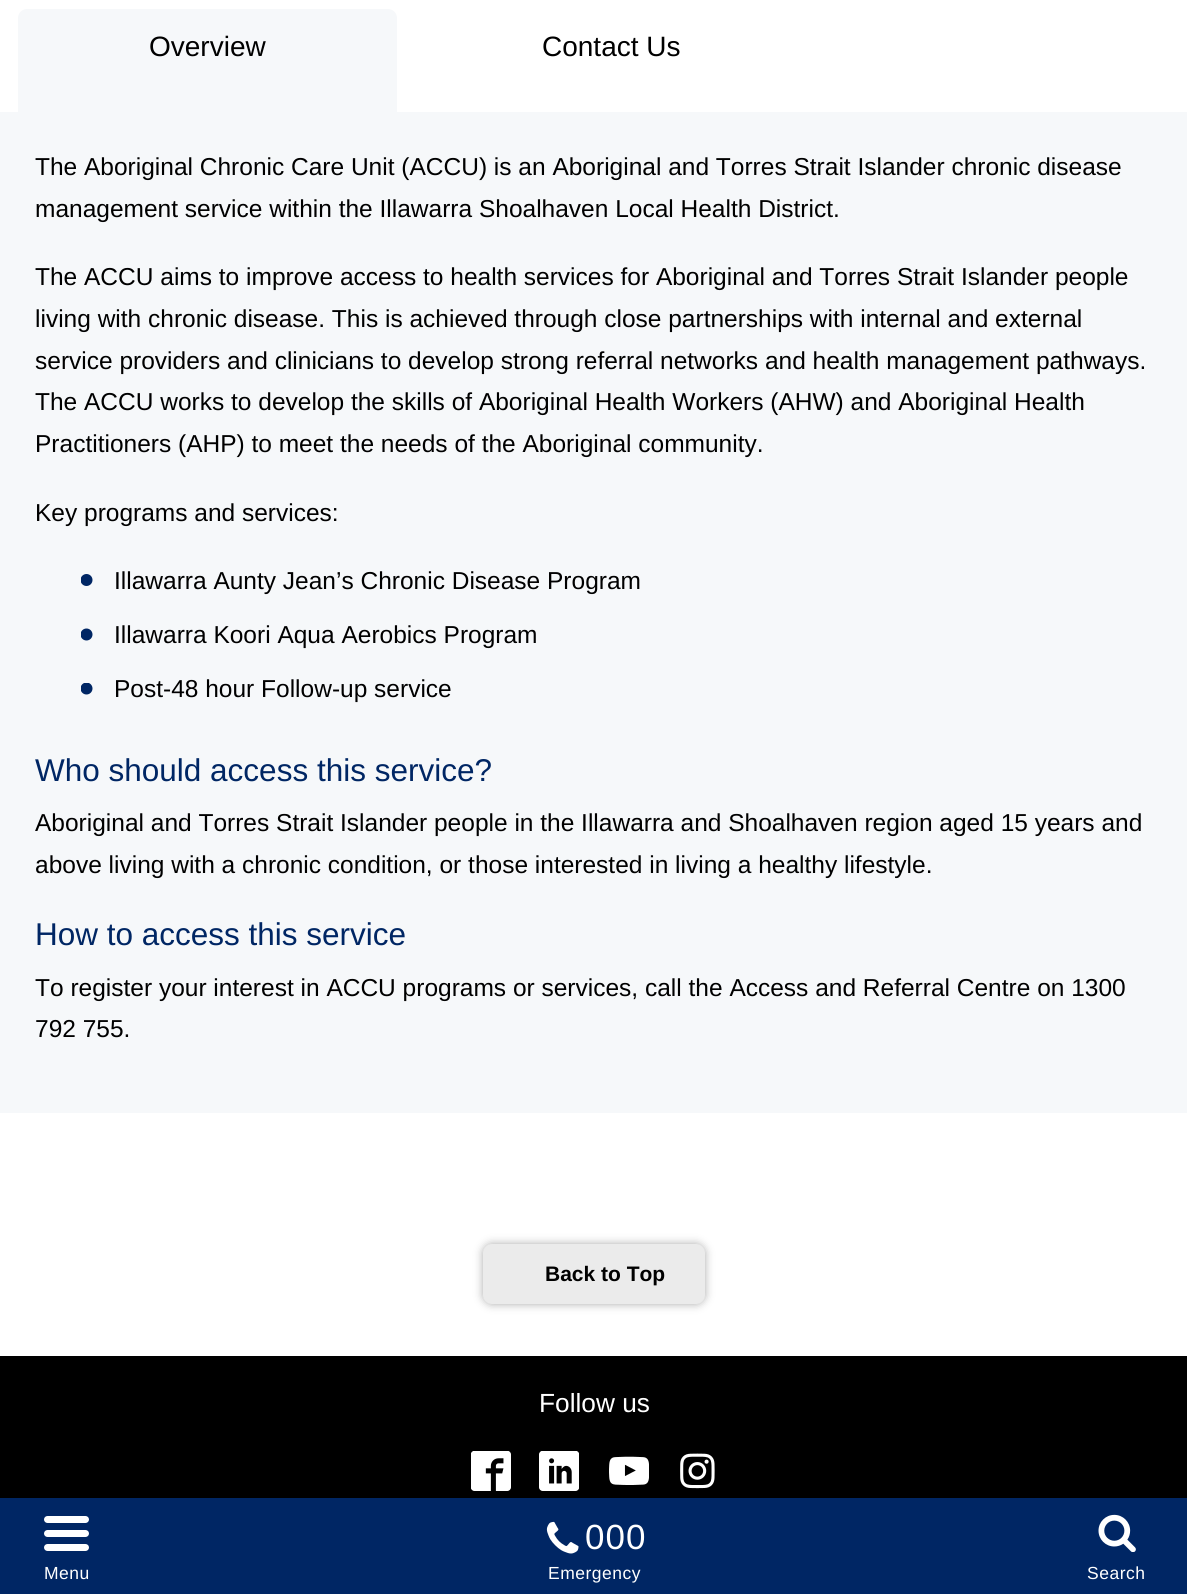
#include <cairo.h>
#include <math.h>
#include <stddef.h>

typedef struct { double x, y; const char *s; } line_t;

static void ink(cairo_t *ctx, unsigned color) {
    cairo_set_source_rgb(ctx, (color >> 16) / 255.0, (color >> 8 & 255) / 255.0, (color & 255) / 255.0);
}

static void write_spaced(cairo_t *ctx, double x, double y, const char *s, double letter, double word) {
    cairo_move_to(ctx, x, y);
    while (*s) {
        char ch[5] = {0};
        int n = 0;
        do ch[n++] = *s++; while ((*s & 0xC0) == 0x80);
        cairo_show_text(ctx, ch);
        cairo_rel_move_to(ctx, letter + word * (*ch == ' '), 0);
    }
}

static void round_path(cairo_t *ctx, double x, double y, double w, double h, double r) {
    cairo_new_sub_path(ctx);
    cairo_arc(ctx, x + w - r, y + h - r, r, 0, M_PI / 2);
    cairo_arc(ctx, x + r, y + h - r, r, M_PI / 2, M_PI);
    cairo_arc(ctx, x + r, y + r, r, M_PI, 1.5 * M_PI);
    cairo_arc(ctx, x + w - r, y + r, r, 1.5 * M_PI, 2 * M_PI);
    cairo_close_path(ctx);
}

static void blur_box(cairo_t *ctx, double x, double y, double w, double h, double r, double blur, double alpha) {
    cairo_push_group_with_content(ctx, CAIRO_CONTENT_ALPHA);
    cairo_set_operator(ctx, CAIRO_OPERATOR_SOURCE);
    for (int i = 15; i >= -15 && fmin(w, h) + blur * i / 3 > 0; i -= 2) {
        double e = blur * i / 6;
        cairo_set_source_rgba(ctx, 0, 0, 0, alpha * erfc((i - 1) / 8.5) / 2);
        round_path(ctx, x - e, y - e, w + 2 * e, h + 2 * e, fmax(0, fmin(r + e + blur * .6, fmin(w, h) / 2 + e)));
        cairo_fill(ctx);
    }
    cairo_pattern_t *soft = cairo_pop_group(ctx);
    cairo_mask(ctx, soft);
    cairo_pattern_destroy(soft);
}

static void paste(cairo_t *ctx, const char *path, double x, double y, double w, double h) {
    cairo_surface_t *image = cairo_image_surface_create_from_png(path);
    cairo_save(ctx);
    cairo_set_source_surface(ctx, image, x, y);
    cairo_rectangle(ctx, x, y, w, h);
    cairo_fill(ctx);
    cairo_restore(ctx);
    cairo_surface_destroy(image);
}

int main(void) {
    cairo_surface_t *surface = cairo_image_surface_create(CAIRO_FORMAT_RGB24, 1187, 1594);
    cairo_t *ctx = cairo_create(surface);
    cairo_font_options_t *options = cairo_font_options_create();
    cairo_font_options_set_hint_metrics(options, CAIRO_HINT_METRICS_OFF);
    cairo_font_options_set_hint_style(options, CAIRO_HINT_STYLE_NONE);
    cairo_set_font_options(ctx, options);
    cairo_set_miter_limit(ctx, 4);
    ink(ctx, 0xFFFFFF);
    cairo_paint(ctx);
    ink(ctx, 0xF6F8FA);
    cairo_new_path(ctx);
    cairo_move_to(ctx, 27, 9);
    cairo_line_to(ctx, 388, 9);
    cairo_curve_to(ctx, 393, 9, 397, 13, 397, 18);
    cairo_line_to(ctx, 397, 112);
    cairo_line_to(ctx, 18, 112);
    cairo_line_to(ctx, 18, 18);
    cairo_curve_to(ctx, 18, 13, 22, 9, 27, 9);
    cairo_close_path(ctx);
    cairo_fill(ctx);
    cairo_select_font_face(ctx, "Liberation Sans", CAIRO_FONT_SLANT_NORMAL, CAIRO_FONT_WEIGHT_NORMAL);
    cairo_set_font_size(ctx, 28);
    ink(ctx, 0x000000);
    cairo_move_to(ctx, 149, 56);
    cairo_show_text(ctx, "Overview");
    cairo_move_to(ctx, 542, 56);
    cairo_show_text(ctx, "Contact Us");
    ink(ctx, 0xF6F8FA);
    cairo_rectangle(ctx, 0, 112, 1187, 1001);
    cairo_fill(ctx);
    cairo_set_font_size(ctx, 24.5);
    ink(ctx, 0x000000);
    {
        static const line_t items[] = {
            {35, 175, "The Aboriginal Chronic Care Unit (ACCU) is an Aboriginal and Torres Strait Islander chronic disease"},
            {35, 217, "management service within the Illawarra Shoalhaven Local Health District."},
            {35, 285, "The ACCU aims to improve access to health services for Aboriginal and Torres Strait Islander people"},
            {35, 327, "living with chronic disease. This is achieved through close partnerships with internal and external"},
            {35, 369, "service providers and clinicians to develop strong referral networks and health management pathways."},
            {35, 410, "The ACCU works to develop the skills of Aboriginal Health Workers (AHW) and Aboriginal Health"},
            {35, 452, "Practitioners (AHP) to meet the needs of the Aboriginal community."},
            {35, 521, "Key programs and services:"},
        };
        for (size_t i = 0; i < sizeof items / sizeof *items; i++) {
            cairo_move_to(ctx, items[i].x, items[i].y);
            cairo_show_text(ctx, items[i].s);
        }
    }
    cairo_save(ctx);
    cairo_rectangle(ctx, 81, 574, 12, 12);
    cairo_clip(ctx);
    ink(ctx, 0x002664);
    cairo_arc(ctx, 86.5, 580, 6, 0, 2 * M_PI);
    cairo_fill(ctx);
    cairo_restore(ctx);
    cairo_move_to(ctx, 114, 589);
    cairo_show_text(ctx, "Illawarra Aunty Jean’s Chronic Disease Program");
    cairo_save(ctx);
    cairo_rectangle(ctx, 81, 628, 12, 13);
    cairo_clip(ctx);
    ink(ctx, 0x002664);
    cairo_arc(ctx, 86.5, 634.5, 6, 0, 2 * M_PI);
    cairo_fill(ctx);
    cairo_restore(ctx);
    cairo_move_to(ctx, 114, 643);
    cairo_show_text(ctx, "Illawarra Koori Aqua Aerobics Program");
    cairo_save(ctx);
    cairo_rectangle(ctx, 81, 683, 12, 12);
    cairo_clip(ctx);
    ink(ctx, 0x002664);
    cairo_arc(ctx, 86.5, 688.5, 6, 0, 2 * M_PI);
    cairo_fill(ctx);
    cairo_restore(ctx);
    cairo_move_to(ctx, 114, 697);
    cairo_show_text(ctx, "Post-48 hour Follow-up service");
    cairo_set_font_size(ctx, 31.5);
    ink(ctx, 0x002664);
    cairo_move_to(ctx, 35, 781);
    cairo_show_text(ctx, "Who should access this service?");
    cairo_set_font_size(ctx, 24.5);
    ink(ctx, 0x000000);
    cairo_move_to(ctx, 35, 831);
    cairo_show_text(ctx, "Aboriginal and Torres Strait Islander people in the Illawarra and Shoalhaven region aged 15 years and");
    cairo_move_to(ctx, 35, 873);
    cairo_show_text(ctx, "above living with a chronic condition, or those interested in living a healthy lifestyle.");
    cairo_set_font_size(ctx, 31.5);
    ink(ctx, 0x002664);
    cairo_move_to(ctx, 35, 945);
    cairo_show_text(ctx, "How to access this service");
    cairo_set_font_size(ctx, 24.5);
    ink(ctx, 0x000000);
    cairo_move_to(ctx, 35, 996);
    cairo_show_text(ctx, "To register your interest in ACCU programs or services, call the Access and Referral Centre on 1300");
    cairo_move_to(ctx, 35, 1037);
    cairo_show_text(ctx, "792 755.");
    ink(ctx, 0xAAAAAA);
    blur_box(ctx, 483, 1244, 222, 60, 9, 4.5, 1);
    ink(ctx, 0xEBEBEB);
    round_path(ctx, 483, 1244, 222, 60, 9);
    cairo_fill(ctx);
    cairo_select_font_face(ctx, "Liberation Sans", CAIRO_FONT_SLANT_NORMAL, CAIRO_FONT_WEIGHT_BOLD);
    cairo_set_font_size(ctx, 21);
    ink(ctx, 0x000000);
    cairo_move_to(ctx, 545, 1281);
    cairo_show_text(ctx, "Back to Top");
    cairo_rectangle(ctx, 0, 1356, 1187, 142);
    cairo_fill(ctx);
    cairo_select_font_face(ctx, "Liberation Sans", CAIRO_FONT_SLANT_NORMAL, CAIRO_FONT_WEIGHT_NORMAL);
    cairo_set_font_size(ctx, 26.25);
    ink(ctx, 0xFFFFFF);
    cairo_move_to(ctx, 539, 1412);
    cairo_show_text(ctx, "Follow us");
    paste(ctx, "media/1.png", 471, 1451, 40, 40);
    paste(ctx, "media/2.png", 539, 1451, 40, 40);
    paste(ctx, "media/3.png", 609, 1456, 40, 29);
    paste(ctx, "media/4.png", 680, 1453, 35, 36);
    ink(ctx, 0x002664);
    cairo_rectangle(ctx, 0, 1498, 1187, 96);
    cairo_fill(ctx);
    ink(ctx, 0xFFFFFF);
    round_path(ctx, 44, 1530, 45, 7, 3.5);
    cairo_fill(ctx);
    round_path(ctx, 44, 1516, 45, 7, 3.5);
    cairo_fill(ctx);
    round_path(ctx, 44, 1544, 45, 7, 3.5);
    cairo_fill(ctx);
    cairo_set_font_size(ctx, 17.5);
    write_spaced(ctx, 44, 1579, "Menu", 0.5, 0);
    paste(ctx, "media/5.png", 546, 1521, 33, 33);
    cairo_set_font_size(ctx, 35);
    write_spaced(ctx, 585, 1549, "000", 1, 0);
    cairo_set_font_size(ctx, 17.5);
    write_spaced(ctx, 548, 1579, "Emergency", 0.5, 0);
    paste(ctx, "media/6.png", 1098, 1514, 38, 38);
    write_spaced(ctx, 1087, 1579, "Search", 0.5, 0);
    cairo_surface_write_to_png(surface, "image.png");
    cairo_font_options_destroy(options);
    cairo_destroy(ctx);
    cairo_surface_destroy(surface);
    return 0;
}
